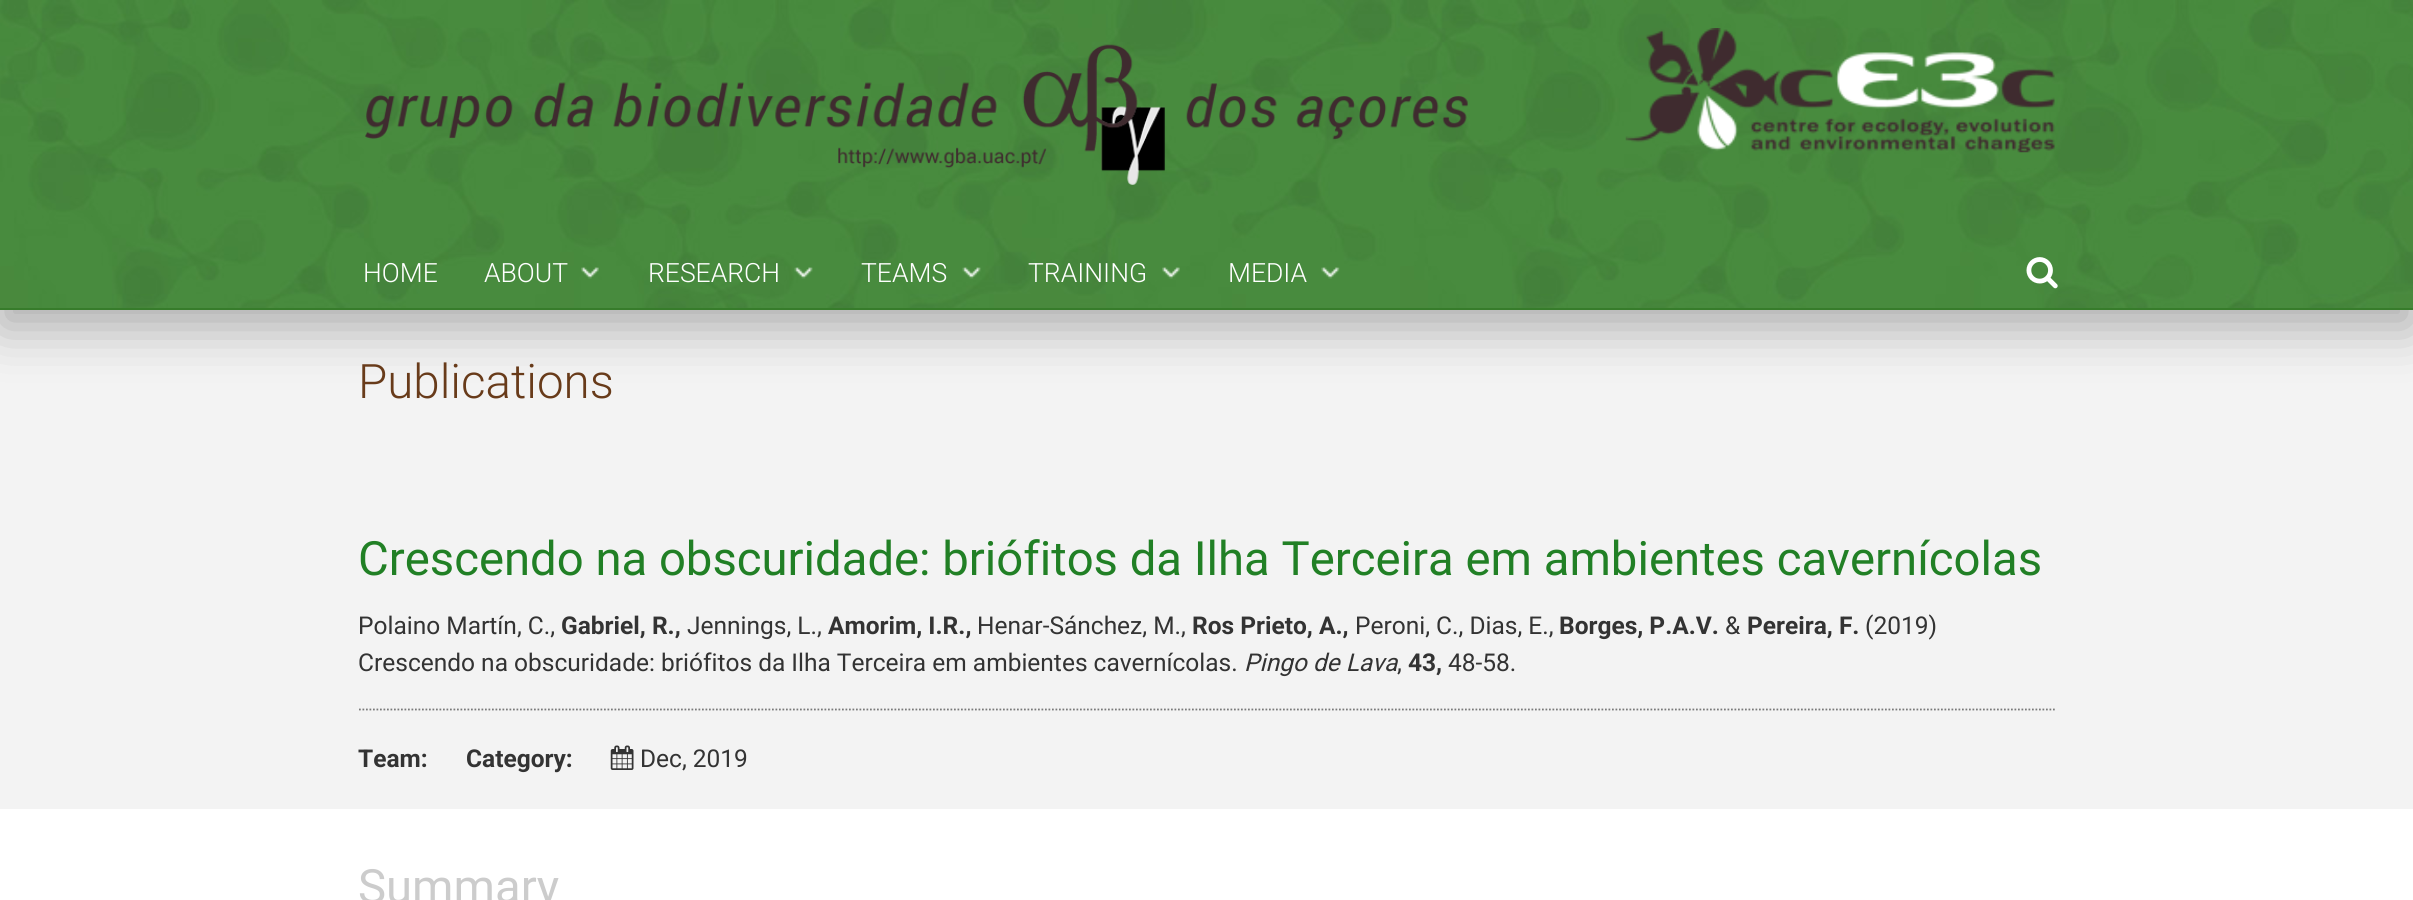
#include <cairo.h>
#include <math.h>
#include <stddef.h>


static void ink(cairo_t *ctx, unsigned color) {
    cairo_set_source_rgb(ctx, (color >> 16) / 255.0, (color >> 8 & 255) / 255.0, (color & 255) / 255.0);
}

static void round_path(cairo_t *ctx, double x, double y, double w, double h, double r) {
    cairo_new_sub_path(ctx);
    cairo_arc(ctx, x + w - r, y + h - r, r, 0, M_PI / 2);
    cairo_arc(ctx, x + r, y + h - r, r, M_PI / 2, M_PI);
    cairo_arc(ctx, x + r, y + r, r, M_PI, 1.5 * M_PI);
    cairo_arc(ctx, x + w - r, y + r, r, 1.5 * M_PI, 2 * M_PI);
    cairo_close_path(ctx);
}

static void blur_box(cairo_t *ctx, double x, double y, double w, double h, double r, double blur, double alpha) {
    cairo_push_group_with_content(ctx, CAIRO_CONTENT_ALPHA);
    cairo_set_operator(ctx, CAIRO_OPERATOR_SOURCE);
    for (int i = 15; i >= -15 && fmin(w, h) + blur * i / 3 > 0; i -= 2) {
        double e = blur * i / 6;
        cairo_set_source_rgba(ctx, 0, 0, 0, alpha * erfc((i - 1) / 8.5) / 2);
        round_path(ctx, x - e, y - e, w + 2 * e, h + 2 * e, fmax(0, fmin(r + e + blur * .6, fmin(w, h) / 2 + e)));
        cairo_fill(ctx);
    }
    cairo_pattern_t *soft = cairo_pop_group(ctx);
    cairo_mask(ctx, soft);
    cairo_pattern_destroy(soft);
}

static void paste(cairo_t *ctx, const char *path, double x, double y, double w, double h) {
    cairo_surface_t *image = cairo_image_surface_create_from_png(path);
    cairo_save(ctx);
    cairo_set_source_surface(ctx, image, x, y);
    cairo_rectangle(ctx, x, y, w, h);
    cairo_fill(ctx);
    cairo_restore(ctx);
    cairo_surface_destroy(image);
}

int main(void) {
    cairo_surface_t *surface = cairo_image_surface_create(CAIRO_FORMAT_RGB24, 2413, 900);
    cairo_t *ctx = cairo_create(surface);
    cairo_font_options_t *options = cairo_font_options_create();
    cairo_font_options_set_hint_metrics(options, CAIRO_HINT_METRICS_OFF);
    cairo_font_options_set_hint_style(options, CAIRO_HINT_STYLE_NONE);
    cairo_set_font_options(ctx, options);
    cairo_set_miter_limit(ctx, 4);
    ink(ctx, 0xFFFFFF);
    cairo_paint(ctx);
    ink(ctx, 0x000000);
    blur_box(ctx, 0, 18, 2413, 309, 0, 26, 0.3);
    paste(ctx, "media/1.png", 0, 0, 2413, 308);
    ink(ctx, 0x377C2B);
    cairo_rectangle(ctx, 0, 308, 2413, 2);
    cairo_fill(ctx);
    paste(ctx, "media/2.png", 365, 44, 1103, 141);
    paste(ctx, "media/3.png", 1625, 28, 430, 125);
    cairo_select_font_face(ctx, "Roboto Light", CAIRO_FONT_SLANT_NORMAL, CAIRO_FONT_WEIGHT_NORMAL);
    cairo_set_font_size(ctx, 26.5);
    ink(ctx, 0xFFFFFF);
    cairo_move_to(ctx, 363, 282);
    cairo_show_text(ctx, "HOME");
    cairo_move_to(ctx, 484, 282);
    cairo_show_text(ctx, "ABOUT");
    paste(ctx, "media/4.png", 581, 267, 18, 12);
    cairo_move_to(ctx, 648, 282);
    cairo_show_text(ctx, "RESEARCH");
    paste(ctx, "media/5.png", 794, 267, 19, 12);
    cairo_move_to(ctx, 861, 282);
    cairo_show_text(ctx, "TEAMS");
    paste(ctx, "media/6.png", 962, 267, 19, 12);
    cairo_move_to(ctx, 1028, 282);
    cairo_show_text(ctx, "TRAINING");
    paste(ctx, "media/7.png", 1162, 267, 18, 12);
    cairo_move_to(ctx, 1228, 282);
    cairo_show_text(ctx, "MEDIA");
    paste(ctx, "media/8.png", 1321, 267, 19, 12);
    paste(ctx, "media/9.png", 2026, 257, 32, 32);
    cairo_set_source_rgba(ctx, 0, 0, 0, 0.05);
    cairo_rectangle(ctx, 0, 310, 2413, 499);
    cairo_fill(ctx);
    cairo_set_font_size(ctx, 47.5);
    ink(ctx, 0x683B1A);
    cairo_move_to(ctx, 358, 398);
    cairo_show_text(ctx, "Publications");
    cairo_select_font_face(ctx, "Roboto", CAIRO_FONT_SLANT_NORMAL, CAIRO_FONT_WEIGHT_NORMAL);
    cairo_set_font_size(ctx, 47.25);
    ink(ctx, 0x218025);
    cairo_move_to(ctx, 358, 575);
    cairo_show_text(ctx, "Crescendo na obscuridade: briófitos da Ilha Terceira em ambientes cavernícolas");
    cairo_new_path(ctx);
    cairo_move_to(ctx, 359, 709.5);
    cairo_line_to(ctx, 2056, 709.5);
    ink(ctx, 0x797979);
    cairo_set_line_width(ctx, 1.8);
    cairo_set_dash(ctx, (double[]){1.75, 1.75}, 2, 0);
    cairo_stroke(ctx);
    cairo_set_font_size(ctx, 24.5);
    ink(ctx, 0x333333);
    cairo_move_to(ctx, 358, 634);
    cairo_show_text(ctx, "Polaino Martín, C.,");
    cairo_select_font_face(ctx, "Roboto", CAIRO_FONT_SLANT_NORMAL, CAIRO_FONT_WEIGHT_BOLD);
    cairo_move_to(ctx, 561, 634);
    cairo_show_text(ctx, "Gabriel, R.,");
    cairo_select_font_face(ctx, "Roboto", CAIRO_FONT_SLANT_NORMAL, CAIRO_FONT_WEIGHT_NORMAL);
    cairo_move_to(ctx, 687, 634);
    cairo_show_text(ctx, "Jennings, L.,");
    cairo_select_font_face(ctx, "Roboto", CAIRO_FONT_SLANT_NORMAL, CAIRO_FONT_WEIGHT_BOLD);
    cairo_move_to(ctx, 828, 634);
    cairo_show_text(ctx, "Amorim, I.R.,");
    cairo_select_font_face(ctx, "Roboto", CAIRO_FONT_SLANT_NORMAL, CAIRO_FONT_WEIGHT_NORMAL);
    cairo_move_to(ctx, 977, 634);
    cairo_show_text(ctx, "Henar-Sánchez, M.,");
    cairo_select_font_face(ctx, "Roboto", CAIRO_FONT_SLANT_NORMAL, CAIRO_FONT_WEIGHT_BOLD);
    cairo_move_to(ctx, 1192, 634);
    cairo_show_text(ctx, "Ros Prieto, A.,");
    cairo_select_font_face(ctx, "Roboto", CAIRO_FONT_SLANT_NORMAL, CAIRO_FONT_WEIGHT_NORMAL);
    cairo_move_to(ctx, 1355, 634);
    cairo_show_text(ctx, "Peroni, C., Dias, E.,");
    cairo_select_font_face(ctx, "Roboto", CAIRO_FONT_SLANT_NORMAL, CAIRO_FONT_WEIGHT_BOLD);
    cairo_move_to(ctx, 1559, 634);
    cairo_show_text(ctx, "Borges, P.A.V.");
    cairo_select_font_face(ctx, "Roboto", CAIRO_FONT_SLANT_NORMAL, CAIRO_FONT_WEIGHT_NORMAL);
    cairo_move_to(ctx, 1725, 634);
    cairo_show_text(ctx, "&");
    cairo_select_font_face(ctx, "Roboto", CAIRO_FONT_SLANT_NORMAL, CAIRO_FONT_WEIGHT_BOLD);
    cairo_move_to(ctx, 1747, 634);
    cairo_show_text(ctx, "Pereira, F.");
    cairo_select_font_face(ctx, "Roboto", CAIRO_FONT_SLANT_NORMAL, CAIRO_FONT_WEIGHT_NORMAL);
    cairo_move_to(ctx, 1865, 634);
    cairo_show_text(ctx, "(2019)");
    cairo_move_to(ctx, 358, 671);
    cairo_show_text(ctx, "Crescendo na obscuridade: briófitos da Ilha Terceira em ambientes cavernícolas.");
    cairo_select_font_face(ctx, "Roboto", CAIRO_FONT_SLANT_ITALIC, CAIRO_FONT_WEIGHT_NORMAL);
    cairo_move_to(ctx, 1244, 671);
    cairo_show_text(ctx, "Pingo de Lava");
    cairo_select_font_face(ctx, "Roboto", CAIRO_FONT_SLANT_NORMAL, CAIRO_FONT_WEIGHT_NORMAL);
    cairo_move_to(ctx, 1397, 671);
    cairo_show_text(ctx, ",");
    cairo_select_font_face(ctx, "Roboto", CAIRO_FONT_SLANT_NORMAL, CAIRO_FONT_WEIGHT_BOLD);
    cairo_move_to(ctx, 1408, 671);
    cairo_show_text(ctx, "43,");
    cairo_select_font_face(ctx, "Roboto", CAIRO_FONT_SLANT_NORMAL, CAIRO_FONT_WEIGHT_NORMAL);
    cairo_move_to(ctx, 1448, 671);
    cairo_show_text(ctx, "48-58.");
    cairo_select_font_face(ctx, "Roboto", CAIRO_FONT_SLANT_NORMAL, CAIRO_FONT_WEIGHT_BOLD);
    cairo_move_to(ctx, 358, 767);
    cairo_show_text(ctx, "Team:");
    cairo_move_to(ctx, 466, 767);
    cairo_show_text(ctx, "Category:");
    paste(ctx, "media/10.png", 610, 745, 24, 25);
    cairo_select_font_face(ctx, "Roboto", CAIRO_FONT_SLANT_NORMAL, CAIRO_FONT_WEIGHT_NORMAL);
    cairo_move_to(ctx, 640, 767);
    cairo_show_text(ctx, "Dec, 2019");
    cairo_set_font_size(ctx, 47.25);
    ink(ctx, 0xCCCCCC);
    cairo_move_to(ctx, 358, 903);
    cairo_show_text(ctx, "Summary");
    cairo_surface_write_to_png(surface, "image.png");
    cairo_font_options_destroy(options);
    cairo_destroy(ctx);
    cairo_surface_destroy(surface);
    return 0;
}
